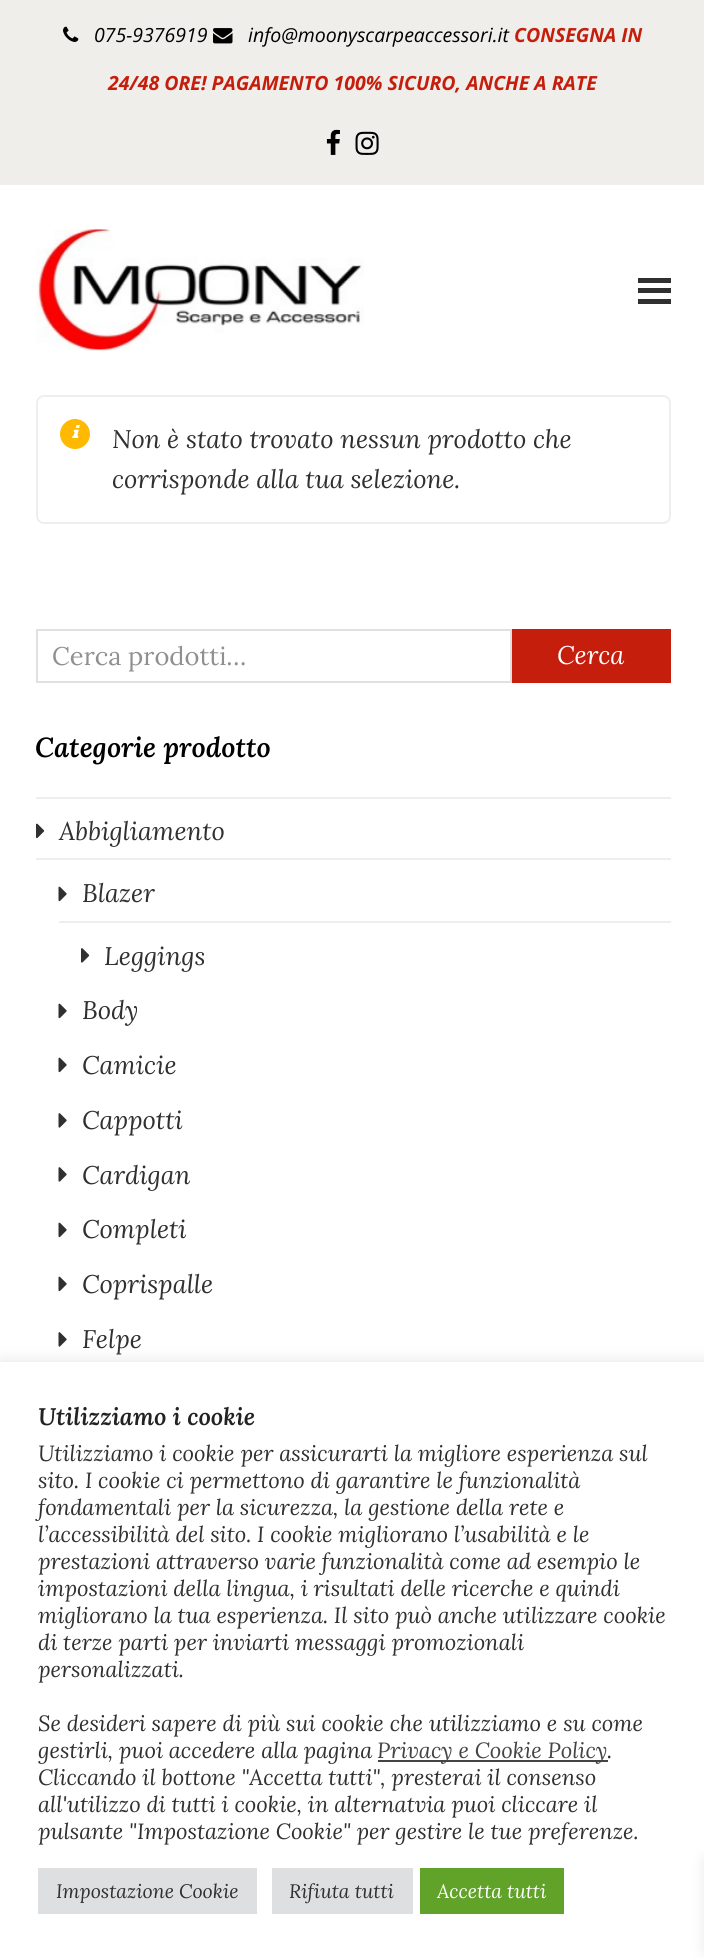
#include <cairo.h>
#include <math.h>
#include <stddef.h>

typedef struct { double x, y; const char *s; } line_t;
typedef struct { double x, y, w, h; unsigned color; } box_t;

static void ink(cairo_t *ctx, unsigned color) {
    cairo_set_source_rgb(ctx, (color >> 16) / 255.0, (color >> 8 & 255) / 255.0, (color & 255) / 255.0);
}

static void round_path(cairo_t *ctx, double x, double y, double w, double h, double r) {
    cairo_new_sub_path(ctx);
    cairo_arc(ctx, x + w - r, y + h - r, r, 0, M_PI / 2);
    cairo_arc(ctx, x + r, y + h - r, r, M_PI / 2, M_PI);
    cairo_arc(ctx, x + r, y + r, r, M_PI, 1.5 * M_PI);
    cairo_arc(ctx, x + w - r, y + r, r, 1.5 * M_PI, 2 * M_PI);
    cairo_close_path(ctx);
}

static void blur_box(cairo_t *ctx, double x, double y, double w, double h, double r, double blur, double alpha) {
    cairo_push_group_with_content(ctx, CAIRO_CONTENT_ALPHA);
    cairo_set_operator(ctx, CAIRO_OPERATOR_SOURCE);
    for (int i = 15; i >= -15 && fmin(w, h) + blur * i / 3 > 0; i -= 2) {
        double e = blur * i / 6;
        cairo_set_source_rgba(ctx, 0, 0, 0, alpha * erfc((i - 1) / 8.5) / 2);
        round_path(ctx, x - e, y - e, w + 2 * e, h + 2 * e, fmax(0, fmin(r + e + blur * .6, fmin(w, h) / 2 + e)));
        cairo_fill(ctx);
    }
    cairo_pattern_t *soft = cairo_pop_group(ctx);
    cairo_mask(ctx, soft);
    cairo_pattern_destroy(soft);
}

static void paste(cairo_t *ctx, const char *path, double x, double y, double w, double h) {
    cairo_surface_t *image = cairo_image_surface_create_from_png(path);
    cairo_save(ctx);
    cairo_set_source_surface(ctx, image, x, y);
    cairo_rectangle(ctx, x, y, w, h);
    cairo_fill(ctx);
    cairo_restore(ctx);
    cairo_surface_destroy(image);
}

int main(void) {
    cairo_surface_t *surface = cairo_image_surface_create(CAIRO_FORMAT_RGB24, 704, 1958);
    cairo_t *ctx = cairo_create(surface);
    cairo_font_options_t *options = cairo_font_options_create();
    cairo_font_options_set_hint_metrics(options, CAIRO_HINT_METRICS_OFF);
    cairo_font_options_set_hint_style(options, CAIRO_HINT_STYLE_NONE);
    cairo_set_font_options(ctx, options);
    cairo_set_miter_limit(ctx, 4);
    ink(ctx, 0xFFFFFF);
    cairo_paint(ctx);
    ink(ctx, 0xEFEEEA);
    cairo_rectangle(ctx, 0, 0, 704, 183);
    cairo_fill(ctx);
    ink(ctx, 0xEEEEEE);
    cairo_rectangle(ctx, 0, 183, 704, 2);
    cairo_fill(ctx);
    paste(ctx, "media/1.png", 63, 26, 16, 16);
    cairo_select_font_face(ctx, "Open Sans", CAIRO_FONT_SLANT_ITALIC, CAIRO_FONT_WEIGHT_NORMAL);
    cairo_set_font_size(ctx, 19.5);
    ink(ctx, 0x000000);
    cairo_move_to(ctx, 94, 42);
    cairo_show_text(ctx, "075-9376919");
    paste(ctx, "media/2.png", 213, 28, 20, 16);
    cairo_move_to(ctx, 248, 42);
    cairo_show_text(ctx, "info@moonyscarpeaccessori.it");
    cairo_select_font_face(ctx, "Open Sans", CAIRO_FONT_SLANT_ITALIC, CAIRO_FONT_WEIGHT_BOLD);
    ink(ctx, 0xC51E0C);
    cairo_move_to(ctx, 514, 42);
    cairo_show_text(ctx, "CONSEGNA IN");
    cairo_move_to(ctx, 108, 90);
    cairo_show_text(ctx, "24/48 ORE! PAGAMENTO 100% SICURO, ANCHE A RATE");
    paste(ctx, "media/3.png", 326, 129, 14, 26);
    paste(ctx, "media/4.png", 355, 131, 24, 24);
    paste(ctx, "media/5.png", 36, 229, 328, 122);
    {
        static const box_t items[] = {
            {638, 288, 33, 5, 0x303030},
            {638, 278, 33, 5, 0x303030},
            {638, 299, 33, 5, 0x303030},
        };
        for (size_t i = 0; i < sizeof items / sizeof *items; i++) {
            ink(ctx, items[i].color);
            cairo_rectangle(ctx, items[i].x, items[i].y, items[i].w, items[i].h);
            cairo_fill(ctx);
        }
    }
    round_path(ctx, 37, 396, 633, 127, 7);
    ink(ctx, 0xEEEEEE);
    cairo_stroke(ctx);
    ink(ctx, 0xFFB900);
    cairo_arc(ctx, 75, 434, 15, 0, 2 * M_PI);
    cairo_fill(ctx);
    paste(ctx, "media/6.png", 72, 425, 8, 13);
    cairo_select_font_face(ctx, "Lora", CAIRO_FONT_SLANT_ITALIC, CAIRO_FONT_WEIGHT_NORMAL);
    cairo_set_font_size(ctx, 25.5);
    ink(ctx, 0x303030);
    cairo_move_to(ctx, 112, 448);
    cairo_show_text(ctx, "Non è stato trovato nessun prodotto che");
    cairo_move_to(ctx, 112, 488);
    cairo_show_text(ctx, "corrisponde alla tua selezione.");
    cairo_rectangle(ctx, 37, 630, 474, 52);
    ink(ctx, 0xE0E0E0);
    cairo_stroke(ctx);
    cairo_select_font_face(ctx, "Lora", CAIRO_FONT_SLANT_NORMAL, CAIRO_FONT_WEIGHT_NORMAL);
    ink(ctx, 0x909090);
    cairo_move_to(ctx, 52, 665);
    cairo_show_text(ctx, "Cerca prodotti…");
    ink(ctx, 0xC51E0C);
    cairo_rectangle(ctx, 512, 629, 159, 54);
    cairo_fill(ctx);
    cairo_select_font_face(ctx, "Lora", CAIRO_FONT_SLANT_ITALIC, CAIRO_FONT_WEIGHT_NORMAL);
    ink(ctx, 0xFFFFFF);
    cairo_move_to(ctx, 557, 664);
    cairo_show_text(ctx, "Cerca");
    cairo_select_font_face(ctx, "Lora SemiBold", CAIRO_FONT_SLANT_ITALIC, CAIRO_FONT_WEIGHT_NORMAL);
    cairo_set_font_size(ctx, 27.5);
    ink(ctx, 0x000000);
    cairo_move_to(ctx, 35, 757);
    cairo_show_text(ctx, "Categorie prodotto");
    ink(ctx, 0xEEEEEE);
    cairo_rectangle(ctx, 36, 797, 635, 2);
    cairo_fill(ctx);
    paste(ctx, "media/7.png", 36, 823, 9, 16);
    cairo_select_font_face(ctx, "Lora", CAIRO_FONT_SLANT_ITALIC, CAIRO_FONT_WEIGHT_NORMAL);
    cairo_set_font_size(ctx, 25.5);
    ink(ctx, 0x303030);
    cairo_move_to(ctx, 59, 840);
    cairo_show_text(ctx, "Abbigliamento");
    ink(ctx, 0xEEEEEE);
    cairo_rectangle(ctx, 36, 858, 635, 2);
    cairo_fill(ctx);
    paste(ctx, "media/8.png", 58, 886, 9, 16);
    ink(ctx, 0x303030);
    cairo_move_to(ctx, 82, 902);
    cairo_show_text(ctx, "Blazer");
    ink(ctx, 0xEEEEEE);
    cairo_rectangle(ctx, 59, 921, 612, 2);
    cairo_fill(ctx);
    paste(ctx, "media/9.png", 81, 948, 9, 15);
    ink(ctx, 0x303030);
    cairo_move_to(ctx, 104, 965);
    cairo_show_text(ctx, "Leggings");
    paste(ctx, "media/8.png", 58, 1003, 9, 16);
    cairo_move_to(ctx, 82, 1019);
    cairo_show_text(ctx, "Body");
    paste(ctx, "media/8.png", 58, 1057, 9, 16);
    cairo_move_to(ctx, 82, 1074);
    cairo_show_text(ctx, "Camicie");
    paste(ctx, "media/10.png", 58, 1113, 9, 15);
    cairo_move_to(ctx, 82, 1129);
    cairo_show_text(ctx, "Cappotti");
    paste(ctx, "media/10.png", 58, 1167, 9, 15);
    cairo_move_to(ctx, 82, 1184);
    cairo_show_text(ctx, "Cardigan");
    paste(ctx, "media/8.png", 58, 1222, 9, 16);
    cairo_move_to(ctx, 82, 1238);
    cairo_show_text(ctx, "Completi");
    paste(ctx, "media/8.png", 58, 1276, 9, 16);
    cairo_move_to(ctx, 82, 1293);
    cairo_show_text(ctx, "Coprispalle");
    paste(ctx, "media/10.png", 58, 1332, 9, 15);
    cairo_move_to(ctx, 82, 1348);
    cairo_show_text(ctx, "Felpe");
    ink(ctx, 0xACABAB);
    blur_box(ctx, 0, 1361, 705, 597, 0, 7.5, 0.3);
    ink(ctx, 0xFFFFFF);
    cairo_rectangle(ctx, 0, 1362, 704, 596);
    cairo_fill(ctx);
    cairo_select_font_face(ctx, "Lora SemiBold", CAIRO_FONT_SLANT_ITALIC, CAIRO_FONT_WEIGHT_NORMAL);
    cairo_set_font_size(ctx, 24);
    ink(ctx, 0x222222);
    cairo_move_to(ctx, 38, 1425);
    cairo_show_text(ctx, "Utilizziamo i cookie");
    cairo_select_font_face(ctx, "Lora", CAIRO_FONT_SLANT_ITALIC, CAIRO_FONT_WEIGHT_NORMAL);
    cairo_set_font_size(ctx, 22);
    ink(ctx, 0x303030);
    {
        static const line_t items[] = {
            {38, 1461, "Utilizziamo i cookie per assicurarti la migliore esperienza sul"},
            {38, 1488, "sito. I cookie ci permettono di garantire le funzionalità"},
            {38, 1515, "fondamentali per la sicurezza, la gestione della rete e"},
            {38, 1542, "l’accessibilità del sito. I cookie migliorano l’usabilità e le"},
            {38, 1569, "prestazioni attraverso varie funzionalità come ad esempio le"},
            {38, 1596, "impostazioni della lingua, i risultati delle ricerche e quindi"},
            {38, 1623, "migliorano la tua esperienza. Il sito può anche utilizzare cookie"},
            {38, 1650, "di terze parti per inviarti messaggi promozionali"},
            {38, 1677, "personalizzati."},
            {38, 1731, "Se desideri sapere di più sui cookie che utilizziamo e su come"},
            {38, 1758, "gestirli, puoi accedere alla pagina"},
        };
        for (size_t i = 0; i < sizeof items / sizeof *items; i++) {
            cairo_move_to(ctx, items[i].x, items[i].y);
            cairo_show_text(ctx, items[i].s);
        }
    }
    ink(ctx, 0x444444);
    cairo_rectangle(ctx, 378, 1760, 230, 2);
    cairo_fill(ctx);
    cairo_move_to(ctx, 377, 1758);
    cairo_show_text(ctx, "Privacy e Cookie Policy");
    ink(ctx, 0x303030);
    {
        static const line_t items[] = {
            {607, 1758, "."},
            {38, 1785, "Cliccando il bottone \"Accetta tutti\", presterai il consenso"},
            {38, 1812, "all'utilizzo di tutti i cookie, in alternatvia puoi cliccare il"},
            {38, 1839, "pulsante \"Impostazione Cookie\" per gestire le tue preferenze."},
        };
        for (size_t i = 0; i < sizeof items / sizeof *items; i++) {
            cairo_move_to(ctx, items[i].x, items[i].y);
            cairo_show_text(ctx, items[i].s);
        }
    }
    ink(ctx, 0xDEDFE0);
    cairo_rectangle(ctx, 38, 1868, 219, 46);
    cairo_fill(ctx);
    cairo_set_font_size(ctx, 19.5);
    ink(ctx, 0x303030);
    cairo_move_to(ctx, 56, 1898);
    cairo_show_text(ctx, "Impostazione Cookie");
    ink(ctx, 0xDEDFE0);
    cairo_rectangle(ctx, 272, 1868, 141, 46);
    cairo_fill(ctx);
    ink(ctx, 0x303030);
    cairo_move_to(ctx, 289, 1898);
    cairo_show_text(ctx, "Rifiuta tutti");
    ink(ctx, 0x61A229);
    cairo_rectangle(ctx, 420, 1868, 144, 46);
    cairo_fill(ctx);
    ink(ctx, 0xFFFFFF);
    cairo_move_to(ctx, 437, 1898);
    cairo_show_text(ctx, "Accetta tutti");
    ink(ctx, 0x000000);
    blur_box(ctx, 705, 1860, 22, 92, 0, 7.5, 0.1);
    cairo_surface_write_to_png(surface, "image.png");
    cairo_font_options_destroy(options);
    cairo_destroy(ctx);
    cairo_surface_destroy(surface);
    return 0;
}
